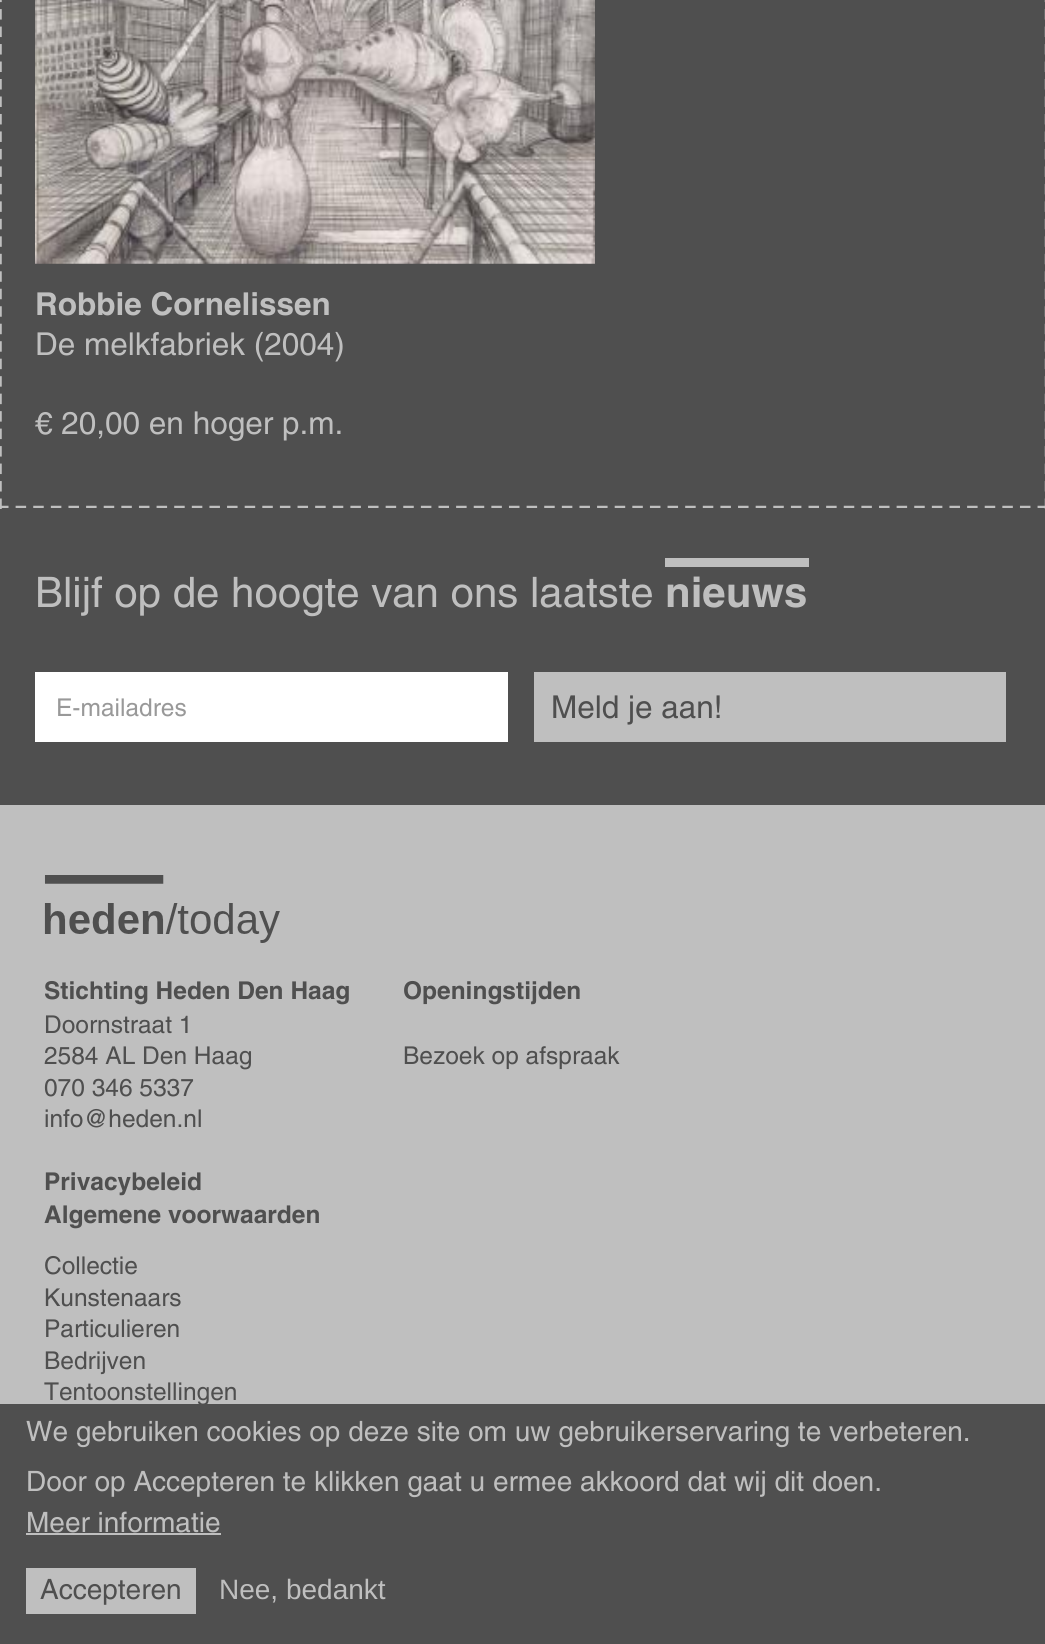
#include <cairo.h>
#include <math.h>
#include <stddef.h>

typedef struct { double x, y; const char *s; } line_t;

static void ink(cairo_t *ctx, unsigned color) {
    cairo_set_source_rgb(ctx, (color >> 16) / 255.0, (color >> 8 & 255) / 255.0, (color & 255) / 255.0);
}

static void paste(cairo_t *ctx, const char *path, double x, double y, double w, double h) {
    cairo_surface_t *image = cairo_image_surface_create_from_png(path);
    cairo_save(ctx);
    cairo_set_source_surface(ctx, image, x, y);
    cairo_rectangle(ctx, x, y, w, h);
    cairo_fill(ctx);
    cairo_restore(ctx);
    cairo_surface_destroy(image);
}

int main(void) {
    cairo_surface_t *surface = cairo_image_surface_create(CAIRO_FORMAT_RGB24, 1045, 1644);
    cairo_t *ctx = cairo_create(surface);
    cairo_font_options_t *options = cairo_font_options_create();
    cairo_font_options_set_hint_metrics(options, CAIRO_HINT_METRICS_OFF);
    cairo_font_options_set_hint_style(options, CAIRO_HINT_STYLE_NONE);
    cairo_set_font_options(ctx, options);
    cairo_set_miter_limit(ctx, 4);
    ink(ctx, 0x4F4F4F);
    cairo_paint(ctx);
    cairo_new_path(ctx);
    cairo_move_to(ctx, 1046.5, -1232);
    cairo_line_to(ctx, 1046.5, 509);
    ink(ctx, 0xBFBFBF);
    cairo_set_line_width(ctx, 3.5);
    cairo_set_dash(ctx, (double[]){10.5, 6.98}, 2, 0);
    cairo_stroke(ctx);
    cairo_save(ctx);
    cairo_rectangle(ctx, 0, 0, 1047, 508);
    cairo_clip(ctx);
    cairo_new_path(ctx);
    cairo_move_to(ctx, -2, 507.5);
    cairo_line_to(ctx, 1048, 507.5);
    cairo_set_dash(ctx, (double[]){10.5, 7.12}, 2, 0);
    cairo_stroke(ctx);
    cairo_restore(ctx);
    cairo_new_path(ctx);
    cairo_move_to(ctx, 0, -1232);
    cairo_line_to(ctx, 0, 509);
    cairo_stroke(ctx);
    paste(ctx, "media/1.png", 35, 0, 560, 264);
    cairo_select_font_face(ctx, "Helvetica", CAIRO_FONT_SLANT_NORMAL, CAIRO_FONT_WEIGHT_BOLD);
    cairo_set_font_size(ctx, 31.5);
    cairo_move_to(ctx, 35, 315);
    cairo_show_text(ctx, "Robbie Cornelissen");
    cairo_select_font_face(ctx, "Helvetica", CAIRO_FONT_SLANT_NORMAL, CAIRO_FONT_WEIGHT_NORMAL);
    cairo_move_to(ctx, 35, 355);
    cairo_show_text(ctx, "De melkfabriek (2004)");
    cairo_move_to(ctx, 35, 434);
    cairo_show_text(ctx, "€ 20,00 en hoger p.m.");
    cairo_set_font_size(ctx, 42);
    cairo_move_to(ctx, 35, 607);
    cairo_show_text(ctx, "Blijf op de hoogte van ons laatste");
    cairo_rectangle(ctx, 665, 558, 144, 9);
    cairo_fill(ctx);
    cairo_select_font_face(ctx, "Helvetica", CAIRO_FONT_SLANT_NORMAL, CAIRO_FONT_WEIGHT_BOLD);
    cairo_move_to(ctx, 665, 607);
    cairo_show_text(ctx, "nieuws");
    ink(ctx, 0xFFFFFF);
    cairo_rectangle(ctx, 35, 672, 473, 70);
    cairo_fill(ctx);
    cairo_select_font_face(ctx, "Helvetica", CAIRO_FONT_SLANT_NORMAL, CAIRO_FONT_WEIGHT_NORMAL);
    cairo_set_font_size(ctx, 24.5);
    ink(ctx, 0x999999);
    cairo_move_to(ctx, 56, 716);
    cairo_show_text(ctx, "E-mailadres");
    ink(ctx, 0xBFBFBF);
    cairo_rectangle(ctx, 534, 672, 472, 70);
    cairo_fill(ctx);
    cairo_set_font_size(ctx, 31.5);
    ink(ctx, 0x4F4F4F);
    cairo_move_to(ctx, 551, 718);
    cairo_show_text(ctx, "Meld je aan!");
    ink(ctx, 0xBFBFBF);
    cairo_rectangle(ctx, 0, 805, 1045, 599);
    cairo_fill(ctx);
    paste(ctx, "media/2.png", 44, 875, 236, 68);
    cairo_select_font_face(ctx, "Helvetica", CAIRO_FONT_SLANT_NORMAL, CAIRO_FONT_WEIGHT_BOLD);
    cairo_set_font_size(ctx, 24.5);
    ink(ctx, 0x4F4F4F);
    cairo_move_to(ctx, 44, 999);
    cairo_show_text(ctx, "Stichting Heden Den Haag");
    cairo_select_font_face(ctx, "Helvetica", CAIRO_FONT_SLANT_NORMAL, CAIRO_FONT_WEIGHT_NORMAL);
    {
        static const line_t items[] = {
            {44, 1033, "Doornstraat 1"},
            {44, 1064, "2584 AL Den Haag"},
            {44, 1096, "070 346 5337"},
            {44, 1127, "info@heden.nl"},
        };
        for (size_t i = 0; i < sizeof items / sizeof *items; i++) {
            cairo_move_to(ctx, items[i].x, items[i].y);
            cairo_show_text(ctx, items[i].s);
        }
    }
    cairo_select_font_face(ctx, "Helvetica", CAIRO_FONT_SLANT_NORMAL, CAIRO_FONT_WEIGHT_BOLD);
    {
        static const line_t items[] = {
            {44, 1190, "Privacybeleid"},
            {44, 1223, "Algemene voorwaarden"},
            {403, 999, "Openingstijden"},
        };
        for (size_t i = 0; i < sizeof items / sizeof *items; i++) {
            cairo_move_to(ctx, items[i].x, items[i].y);
            cairo_show_text(ctx, items[i].s);
        }
    }
    cairo_select_font_face(ctx, "Helvetica", CAIRO_FONT_SLANT_NORMAL, CAIRO_FONT_WEIGHT_NORMAL);
    {
        static const line_t items[] = {
            {403, 1064, "Bezoek op afspraak"},
            {44, 1274, "Collectie"},
            {44, 1306, "Kunstenaars"},
            {44, 1337, "Particulieren"},
            {44, 1369, "Bedrijven"},
            {44, 1400, "Tentoonstellingen"},
        };
        for (size_t i = 0; i < sizeof items / sizeof *items; i++) {
            cairo_move_to(ctx, items[i].x, items[i].y);
            cairo_show_text(ctx, items[i].s);
        }
    }
    cairo_set_font_size(ctx, 28);
    ink(ctx, 0xBFBFBF);
    {
        static const line_t items[] = {
            {26, 1441, "We gebruiken cookies op deze site om uw gebruikerservaring te verbeteren."},
            {26, 1491, "Door op Accepteren te klikken gaat u ermee akkoord dat wij dit doen."},
            {26, 1532, "Meer informatie"},
        };
        for (size_t i = 0; i < sizeof items / sizeof *items; i++) {
            cairo_move_to(ctx, items[i].x, items[i].y);
            cairo_show_text(ctx, items[i].s);
        }
    }
    cairo_rectangle(ctx, 26, 1533, 195, 2);
    cairo_fill(ctx);
    cairo_rectangle(ctx, 26, 1568, 170, 46);
    cairo_fill(ctx);
    ink(ctx, 0x4F4F4F);
    cairo_move_to(ctx, 40, 1599);
    cairo_show_text(ctx, "Accepteren");
    cairo_select_font_face(ctx, "Liberation Sans", CAIRO_FONT_SLANT_NORMAL, CAIRO_FONT_WEIGHT_NORMAL);
    ink(ctx, 0xBFBFBF);
    cairo_move_to(ctx, 219, 1599);
    cairo_show_text(ctx, "Nee, bedankt");
    cairo_surface_write_to_png(surface, "image.png");
    cairo_font_options_destroy(options);
    cairo_destroy(ctx);
    cairo_surface_destroy(surface);
    return 0;
}
